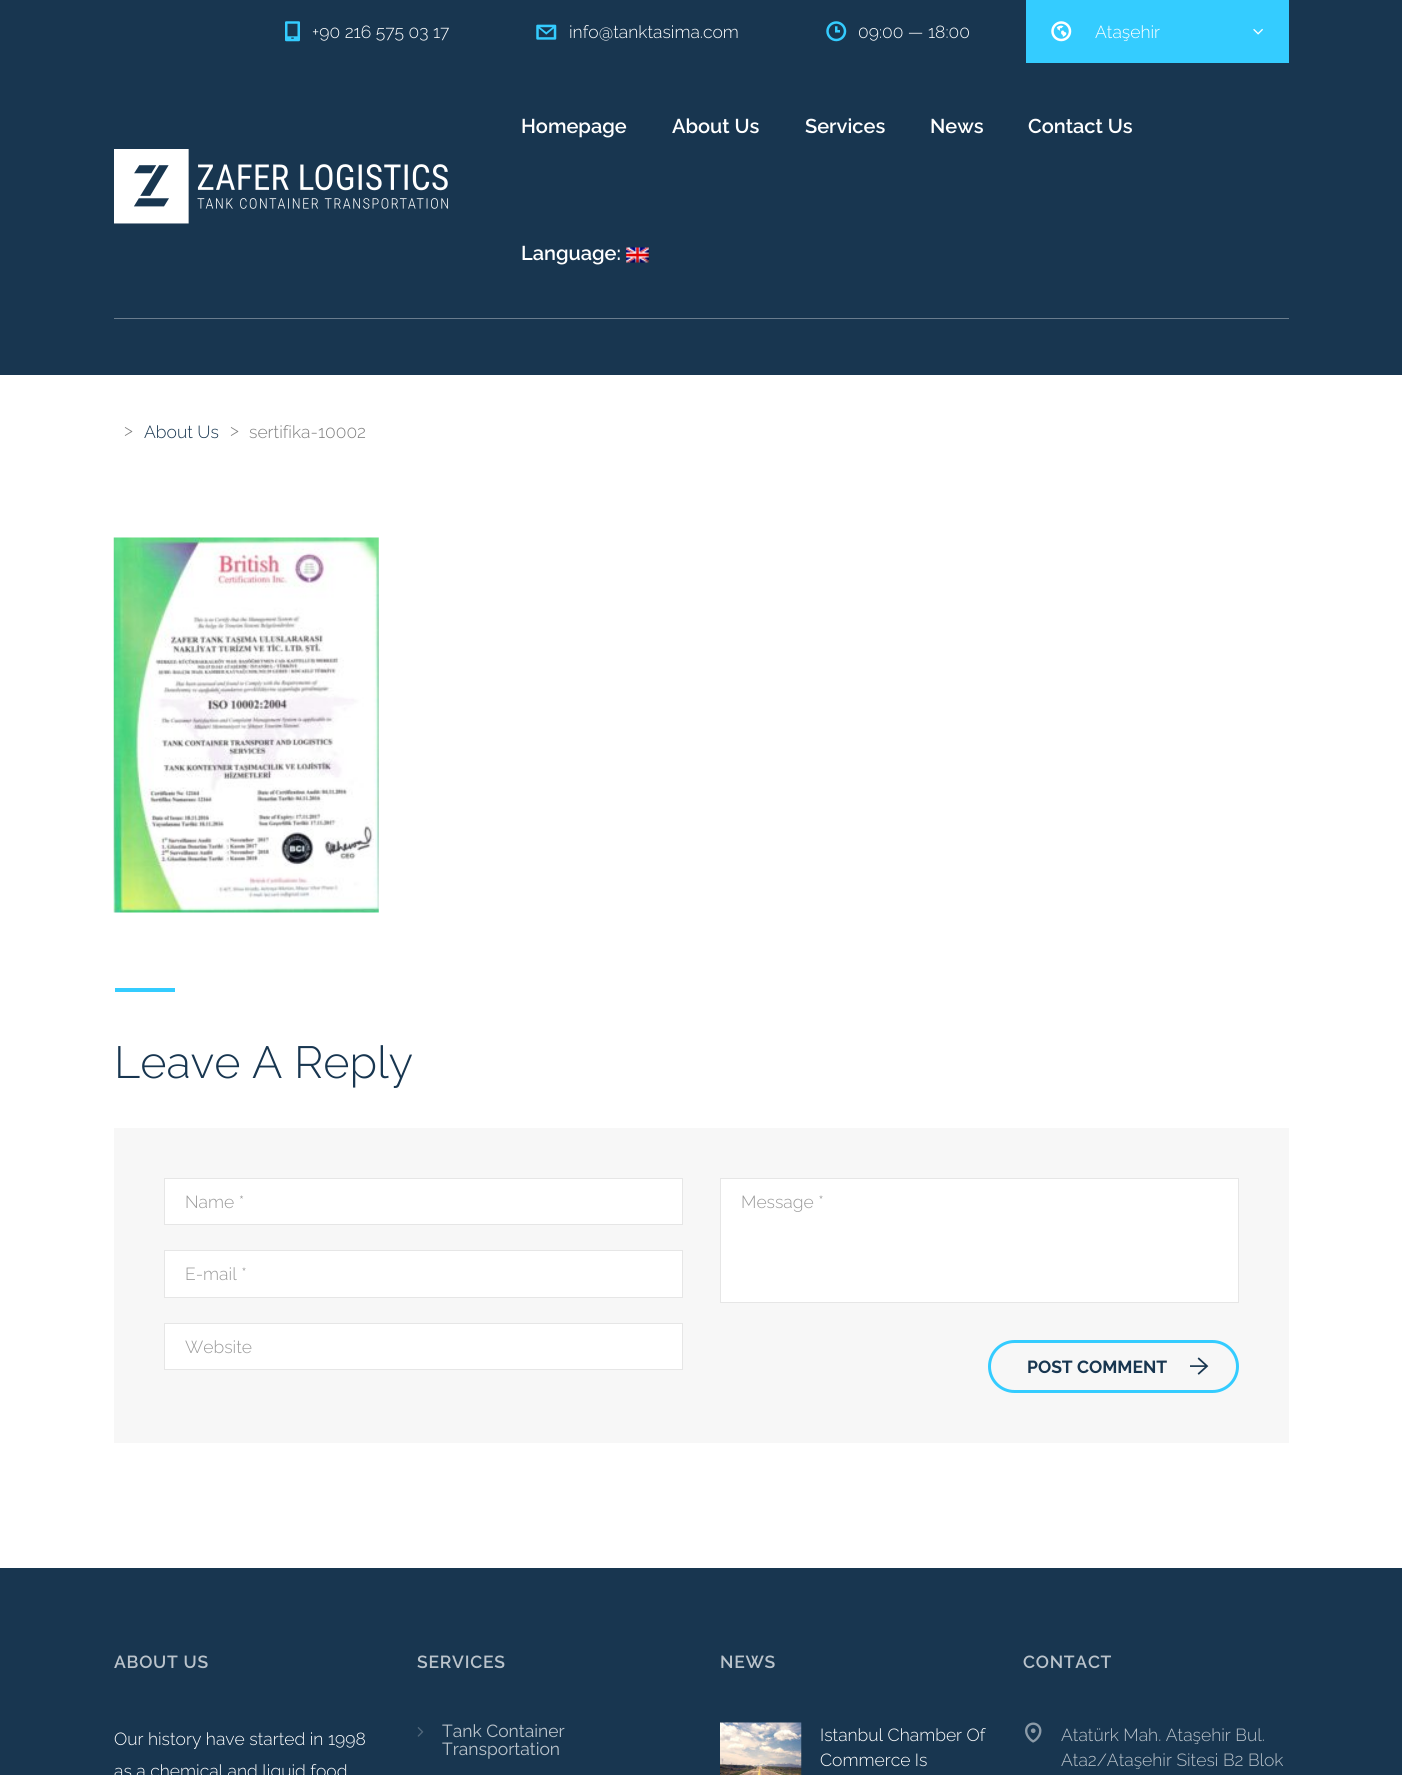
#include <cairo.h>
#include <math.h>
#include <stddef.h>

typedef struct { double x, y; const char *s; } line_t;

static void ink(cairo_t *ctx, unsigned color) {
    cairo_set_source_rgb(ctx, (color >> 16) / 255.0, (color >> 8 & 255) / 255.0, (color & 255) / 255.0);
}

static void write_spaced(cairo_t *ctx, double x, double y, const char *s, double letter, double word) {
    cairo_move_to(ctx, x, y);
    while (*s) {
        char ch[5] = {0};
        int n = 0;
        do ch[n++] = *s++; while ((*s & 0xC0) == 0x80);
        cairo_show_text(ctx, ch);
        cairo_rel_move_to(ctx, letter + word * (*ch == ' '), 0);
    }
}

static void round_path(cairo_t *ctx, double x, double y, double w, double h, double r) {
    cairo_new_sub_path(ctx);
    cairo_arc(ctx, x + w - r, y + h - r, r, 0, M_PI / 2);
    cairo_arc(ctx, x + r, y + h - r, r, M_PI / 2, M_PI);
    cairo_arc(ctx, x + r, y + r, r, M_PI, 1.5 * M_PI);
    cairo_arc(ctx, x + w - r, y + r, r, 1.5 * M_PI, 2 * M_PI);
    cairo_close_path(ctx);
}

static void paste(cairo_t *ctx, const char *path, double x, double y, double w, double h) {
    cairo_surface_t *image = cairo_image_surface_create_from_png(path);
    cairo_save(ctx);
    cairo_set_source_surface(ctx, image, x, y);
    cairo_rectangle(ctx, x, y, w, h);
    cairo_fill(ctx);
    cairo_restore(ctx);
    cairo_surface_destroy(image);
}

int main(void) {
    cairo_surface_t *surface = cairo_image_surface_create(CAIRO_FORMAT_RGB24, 1402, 1775);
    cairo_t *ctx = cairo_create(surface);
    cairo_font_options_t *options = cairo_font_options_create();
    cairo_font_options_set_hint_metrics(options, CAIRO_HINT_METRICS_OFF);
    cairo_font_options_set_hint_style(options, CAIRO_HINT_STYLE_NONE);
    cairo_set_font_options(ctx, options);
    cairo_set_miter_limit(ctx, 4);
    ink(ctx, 0xFFFFFF);
    cairo_paint(ctx);
    ink(ctx, 0x183650);
    cairo_rectangle(ctx, 0, 0, 1402, 375);
    cairo_fill(ctx);
    paste(ctx, "media/1.png", 285, 21, 15, 21);
    cairo_select_font_face(ctx, "Raleway Light", CAIRO_FONT_SLANT_NORMAL, CAIRO_FONT_WEIGHT_NORMAL);
    cairo_set_font_size(ctx, 17.5);
    ink(ctx, 0xFFFFFF);
    cairo_move_to(ctx, 312, 38);
    cairo_show_text(ctx, "+90 216 575 03 17");
    paste(ctx, "media/2.png", 536, 24, 21, 16);
    cairo_move_to(ctx, 569, 38);
    cairo_show_text(ctx, "info@tanktasima.com");
    paste(ctx, "media/3.png", 826, 21, 21, 21);
    cairo_move_to(ctx, 858, 38);
    cairo_show_text(ctx, "09:00 — 18:00");
    ink(ctx, 0x34CCFF);
    cairo_rectangle(ctx, 1026, 0, 263, 63);
    cairo_fill(ctx);
    paste(ctx, "media/4.png", 1051, 21, 21, 21);
    ink(ctx, 0xFFFFFF);
    cairo_move_to(ctx, 1095, 38);
    cairo_show_text(ctx, "Ataşehir");
    paste(ctx, "media/5.png", 1253, 28, 10, 7);
    ink(ctx, 0x697C8D);
    cairo_rectangle(ctx, 114, 318, 1175, 1);
    cairo_fill(ctx);
    paste(ctx, "media/6.png", 114, 149, 334, 75);
    cairo_select_font_face(ctx, "Raleway SemiBold", CAIRO_FONT_SLANT_NORMAL, CAIRO_FONT_WEIGHT_NORMAL);
    cairo_set_font_size(ctx, 20);
    ink(ctx, 0xFFFFFF);
    {
        static const line_t items[] = {
            {521, 133, "Homepage"},
            {672, 133, "About Us"},
            {805, 133, "Services"},
            {930, 133, "News"},
            {1028, 133, "Contact Us"},
            {521, 260, "Language:"},
        };
        for (size_t i = 0; i < sizeof items / sizeof *items; i++) {
            cairo_move_to(ctx, items[i].x, items[i].y);
            cairo_show_text(ctx, items[i].s);
        }
    }
    paste(ctx, "media/7.png", 626, 247, 23, 16);
    cairo_select_font_face(ctx, "Raleway Light", CAIRO_FONT_SLANT_NORMAL, CAIRO_FONT_WEIGHT_NORMAL);
    cairo_set_font_size(ctx, 17.5);
    ink(ctx, 0x808080);
    cairo_move_to(ctx, 124, 436);
    cairo_show_text(ctx, ">");
    ink(ctx, 0x183650);
    cairo_move_to(ctx, 144, 438);
    cairo_show_text(ctx, "About Us");
    ink(ctx, 0x808080);
    cairo_move_to(ctx, 230, 436);
    cairo_show_text(ctx, ">");
    cairo_move_to(ctx, 249, 438);
    cairo_show_text(ctx, "sertifika-10002");
    paste(ctx, "media/8.png", 113, 537, 266, 376);
    ink(ctx, 0x34CCFF);
    cairo_rectangle(ctx, 115, 988, 60, 4);
    cairo_fill(ctx);
    cairo_set_font_size(ctx, 45);
    ink(ctx, 0x183650);
    cairo_move_to(ctx, 114, 1078);
    cairo_show_text(ctx, "Leave A Reply");
    ink(ctx, 0xF7F7F7);
    cairo_rectangle(ctx, 114, 1128, 1175, 315);
    cairo_fill(ctx);
    ink(ctx, 0xFFFFFF);
    cairo_rectangle(ctx, 164.5, 1178.5, 518, 46);
    cairo_fill_preserve(ctx);
    ink(ctx, 0xE6E6E6);
    cairo_set_line_width(ctx, 1);
    cairo_stroke(ctx);
    cairo_set_font_size(ctx, 17.5);
    ink(ctx, 0x999999);
    cairo_move_to(ctx, 185, 1208);
    cairo_show_text(ctx, "Name *");
    ink(ctx, 0xFFFFFF);
    cairo_rectangle(ctx, 164.5, 1250.5, 518, 47);
    cairo_fill_preserve(ctx);
    ink(ctx, 0xE6E6E6);
    cairo_stroke(ctx);
    ink(ctx, 0x999999);
    cairo_move_to(ctx, 185, 1280);
    cairo_show_text(ctx, "E-mail *");
    ink(ctx, 0xFFFFFF);
    cairo_rectangle(ctx, 164.5, 1323.5, 518, 46);
    cairo_fill_preserve(ctx);
    ink(ctx, 0xE6E6E6);
    cairo_stroke(ctx);
    ink(ctx, 0x999999);
    cairo_move_to(ctx, 185, 1353);
    cairo_show_text(ctx, "Website");
    ink(ctx, 0xFFFFFF);
    cairo_rectangle(ctx, 720.5, 1178.5, 518, 124);
    cairo_fill_preserve(ctx);
    ink(ctx, 0xE6E6E6);
    cairo_stroke(ctx);
    ink(ctx, 0x999999);
    cairo_move_to(ctx, 741, 1208);
    cairo_show_text(ctx, "Message *");
    round_path(ctx, 989.5, 1341.5, 248, 50, 25);
    ink(ctx, 0x34CCFF);
    cairo_set_line_width(ctx, 3);
    cairo_stroke(ctx);
    cairo_select_font_face(ctx, "Raleway", CAIRO_FONT_SLANT_NORMAL, CAIRO_FONT_WEIGHT_BOLD);
    ink(ctx, 0x183650);
    cairo_move_to(ctx, 1027, 1373);
    cairo_show_text(ctx, "POST COMMENT");
    paste(ctx, "media/9.png", 1190, 1357, 19, 18);
    cairo_rectangle(ctx, 0, 1568, 1402, 207);
    cairo_fill(ctx);
    cairo_select_font_face(ctx, "Raleway SemiBold", CAIRO_FONT_SLANT_NORMAL, CAIRO_FONT_WEIGHT_NORMAL);
    ink(ctx, 0xBAC3CB);
    write_spaced(ctx, 114, 1668, "ABOUT US", 0.75, 0);
    cairo_select_font_face(ctx, "Raleway Light", CAIRO_FONT_SLANT_NORMAL, CAIRO_FONT_WEIGHT_NORMAL);
    ink(ctx, 0xFFFFFF);
    cairo_move_to(ctx, 114, 1745);
    cairo_show_text(ctx, "Our history have started in 1998");
    cairo_move_to(ctx, 114, 1777);
    cairo_show_text(ctx, "as a chemical and liquid food");
    cairo_select_font_face(ctx, "Raleway SemiBold", CAIRO_FONT_SLANT_NORMAL, CAIRO_FONT_WEIGHT_NORMAL);
    ink(ctx, 0xBAC3CB);
    write_spaced(ctx, 417, 1668, "SERVICES", 0.75, 0);
    paste(ctx, "media/10.png", 417, 1727, 7, 10);
    cairo_select_font_face(ctx, "Raleway", CAIRO_FONT_SLANT_NORMAL, CAIRO_FONT_WEIGHT_NORMAL);
    cairo_move_to(ctx, 442, 1737);
    cairo_show_text(ctx, "Tank Container");
    cairo_move_to(ctx, 442, 1755);
    cairo_show_text(ctx, "Transportation");
    cairo_select_font_face(ctx, "Raleway SemiBold", CAIRO_FONT_SLANT_NORMAL, CAIRO_FONT_WEIGHT_NORMAL);
    write_spaced(ctx, 720, 1668, "NEWS", 0.75, 0);
    paste(ctx, "media/11.png", 720, 1722, 82, 53);
    cairo_select_font_face(ctx, "Raleway Light", CAIRO_FONT_SLANT_NORMAL, CAIRO_FONT_WEIGHT_NORMAL);
    ink(ctx, 0xFFFFFF);
    cairo_move_to(ctx, 820, 1741);
    cairo_show_text(ctx, "Istanbul Chamber Of");
    cairo_move_to(ctx, 820, 1766);
    cairo_show_text(ctx, "Commerce Is");
    cairo_select_font_face(ctx, "Raleway SemiBold", CAIRO_FONT_SLANT_NORMAL, CAIRO_FONT_WEIGHT_NORMAL);
    ink(ctx, 0xBAC3CB);
    write_spaced(ctx, 1023, 1668, "CONTACT", 0.75, 0);
    paste(ctx, "media/12.png", 1025, 1722, 17, 21);
    cairo_select_font_face(ctx, "Raleway Light", CAIRO_FONT_SLANT_NORMAL, CAIRO_FONT_WEIGHT_NORMAL);
    cairo_move_to(ctx, 1061, 1741);
    cairo_show_text(ctx, "Atatürk Mah. Ataşehir Bul.");
    cairo_move_to(ctx, 1061, 1766);
    cairo_show_text(ctx, "Ata2/Ataşehir Sitesi B2 Blok");
    cairo_surface_write_to_png(surface, "image.png");
    cairo_font_options_destroy(options);
    cairo_destroy(ctx);
    cairo_surface_destroy(surface);
    return 0;
}
